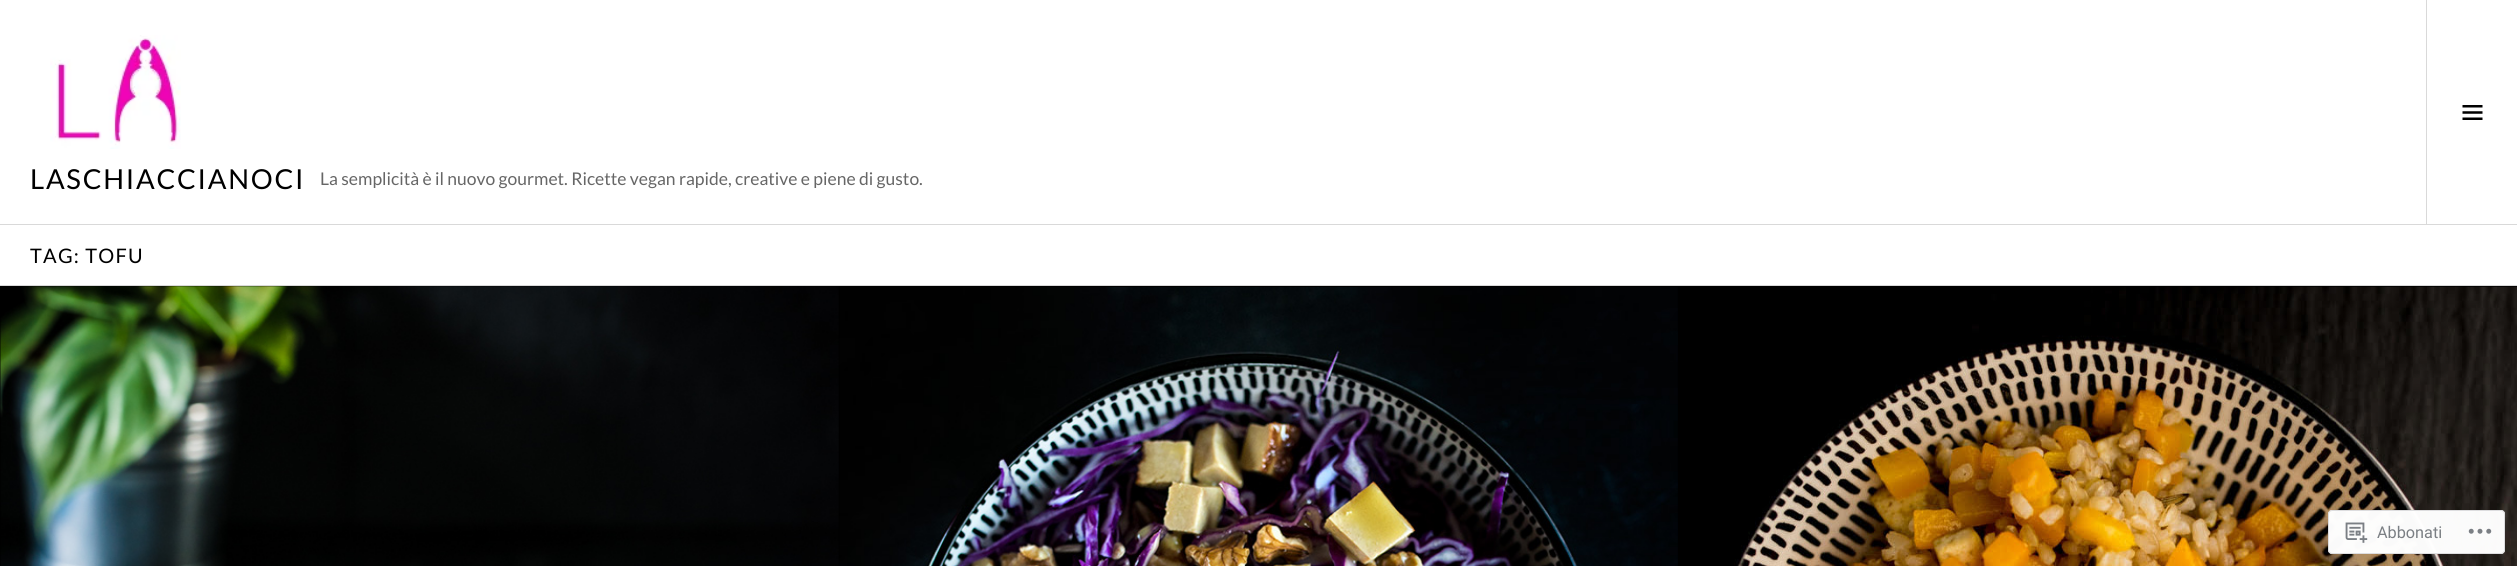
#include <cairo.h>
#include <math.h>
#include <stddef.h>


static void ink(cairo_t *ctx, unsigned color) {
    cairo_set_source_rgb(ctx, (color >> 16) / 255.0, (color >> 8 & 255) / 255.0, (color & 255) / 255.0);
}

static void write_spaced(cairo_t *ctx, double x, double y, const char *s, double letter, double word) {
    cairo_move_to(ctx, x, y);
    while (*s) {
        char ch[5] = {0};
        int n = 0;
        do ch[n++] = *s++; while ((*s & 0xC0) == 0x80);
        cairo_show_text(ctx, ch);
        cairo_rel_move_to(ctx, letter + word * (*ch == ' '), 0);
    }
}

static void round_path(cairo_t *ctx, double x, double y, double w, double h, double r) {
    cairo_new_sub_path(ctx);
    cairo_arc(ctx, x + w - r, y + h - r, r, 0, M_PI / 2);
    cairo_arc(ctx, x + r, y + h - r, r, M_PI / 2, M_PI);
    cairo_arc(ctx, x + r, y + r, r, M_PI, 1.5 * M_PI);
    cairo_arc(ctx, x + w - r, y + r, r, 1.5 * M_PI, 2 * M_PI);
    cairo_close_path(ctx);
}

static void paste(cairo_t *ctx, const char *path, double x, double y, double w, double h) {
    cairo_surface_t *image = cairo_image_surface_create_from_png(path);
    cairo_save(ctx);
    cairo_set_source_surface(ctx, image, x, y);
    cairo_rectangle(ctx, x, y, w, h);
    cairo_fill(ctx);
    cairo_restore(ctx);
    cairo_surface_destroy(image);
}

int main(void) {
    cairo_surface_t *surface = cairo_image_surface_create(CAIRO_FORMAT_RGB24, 2517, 566);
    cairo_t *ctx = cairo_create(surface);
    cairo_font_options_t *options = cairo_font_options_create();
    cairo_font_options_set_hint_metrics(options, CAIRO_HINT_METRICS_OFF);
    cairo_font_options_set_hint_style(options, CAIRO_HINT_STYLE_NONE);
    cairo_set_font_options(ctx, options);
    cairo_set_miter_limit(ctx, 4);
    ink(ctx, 0xFFFFFF);
    cairo_paint(ctx);
    ink(ctx, 0xD9D9D9);
    cairo_rectangle(ctx, 0, 224, 2517, 1);
    cairo_fill(ctx);
    paste(ctx, "media/1.png", 50, 35, 131, 114);
    cairo_select_font_face(ctx, "Lato", CAIRO_FONT_SLANT_NORMAL, CAIRO_FONT_WEIGHT_NORMAL);
    cairo_set_font_size(ctx, 27.5);
    ink(ctx, 0x000000);
    write_spaced(ctx, 30, 189, "LASCHIACCIANOCI", 1.75, 0);
    cairo_set_font_size(ctx, 17.5);
    ink(ctx, 0x666666);
    cairo_move_to(ctx, 320, 185);
    cairo_show_text(ctx, "La semplicità è il nuovo gourmet. Ricette vegan rapide, creative e piene di gusto.");
    ink(ctx, 0xD9D9D9);
    cairo_rectangle(ctx, 2426, 0, 1, 224);
    cairo_fill(ctx);
    paste(ctx, "media/2.png", 2462, 105, 21, 15);
    cairo_rectangle(ctx, 0, 285, 2517, 1);
    cairo_fill(ctx);
    cairo_set_font_size(ctx, 20);
    ink(ctx, 0x000000);
    write_spaced(ctx, 30, 263, "TAG: TOFU", 1.25, 0);
    cairo_rectangle(ctx, 0, 286, 2517, 280);
    cairo_fill(ctx);
    paste(ctx, "media/3.png", 0, 286, 839, 280);
    paste(ctx, "media/4.png", 839, 287, 839, 279);
    paste(ctx, "media/5.png", 1734, 286, 783, 280);
    cairo_set_source_rgba(ctx, 1, 1, 1, 0.98);
    round_path(ctx, 2328, 510, 177, 44, 4);
    cairo_fill(ctx);
    round_path(ctx, 2328.5, 510.5, 176, 43, 3.5);
    cairo_set_source_rgba(ctx, 0.863, 0.863, 0.871, 0.98);
    cairo_set_line_width(ctx, 1);
    cairo_stroke(ctx);
    paste(ctx, "media/6.png", 2345, 522, 23, 21);
    cairo_select_font_face(ctx, "Roboto", CAIRO_FONT_SLANT_NORMAL, CAIRO_FONT_WEIGHT_NORMAL);
    cairo_set_font_size(ctx, 16.25);
    ink(ctx, 0x7B7F84);
    cairo_move_to(ctx, 2377, 538);
    cairo_show_text(ctx, "Abbonati");
    paste(ctx, "media/7.png", 2468, 528, 24, 6);
    cairo_surface_write_to_png(surface, "image.png");
    cairo_font_options_destroy(options);
    cairo_destroy(ctx);
    cairo_surface_destroy(surface);
    return 0;
}
